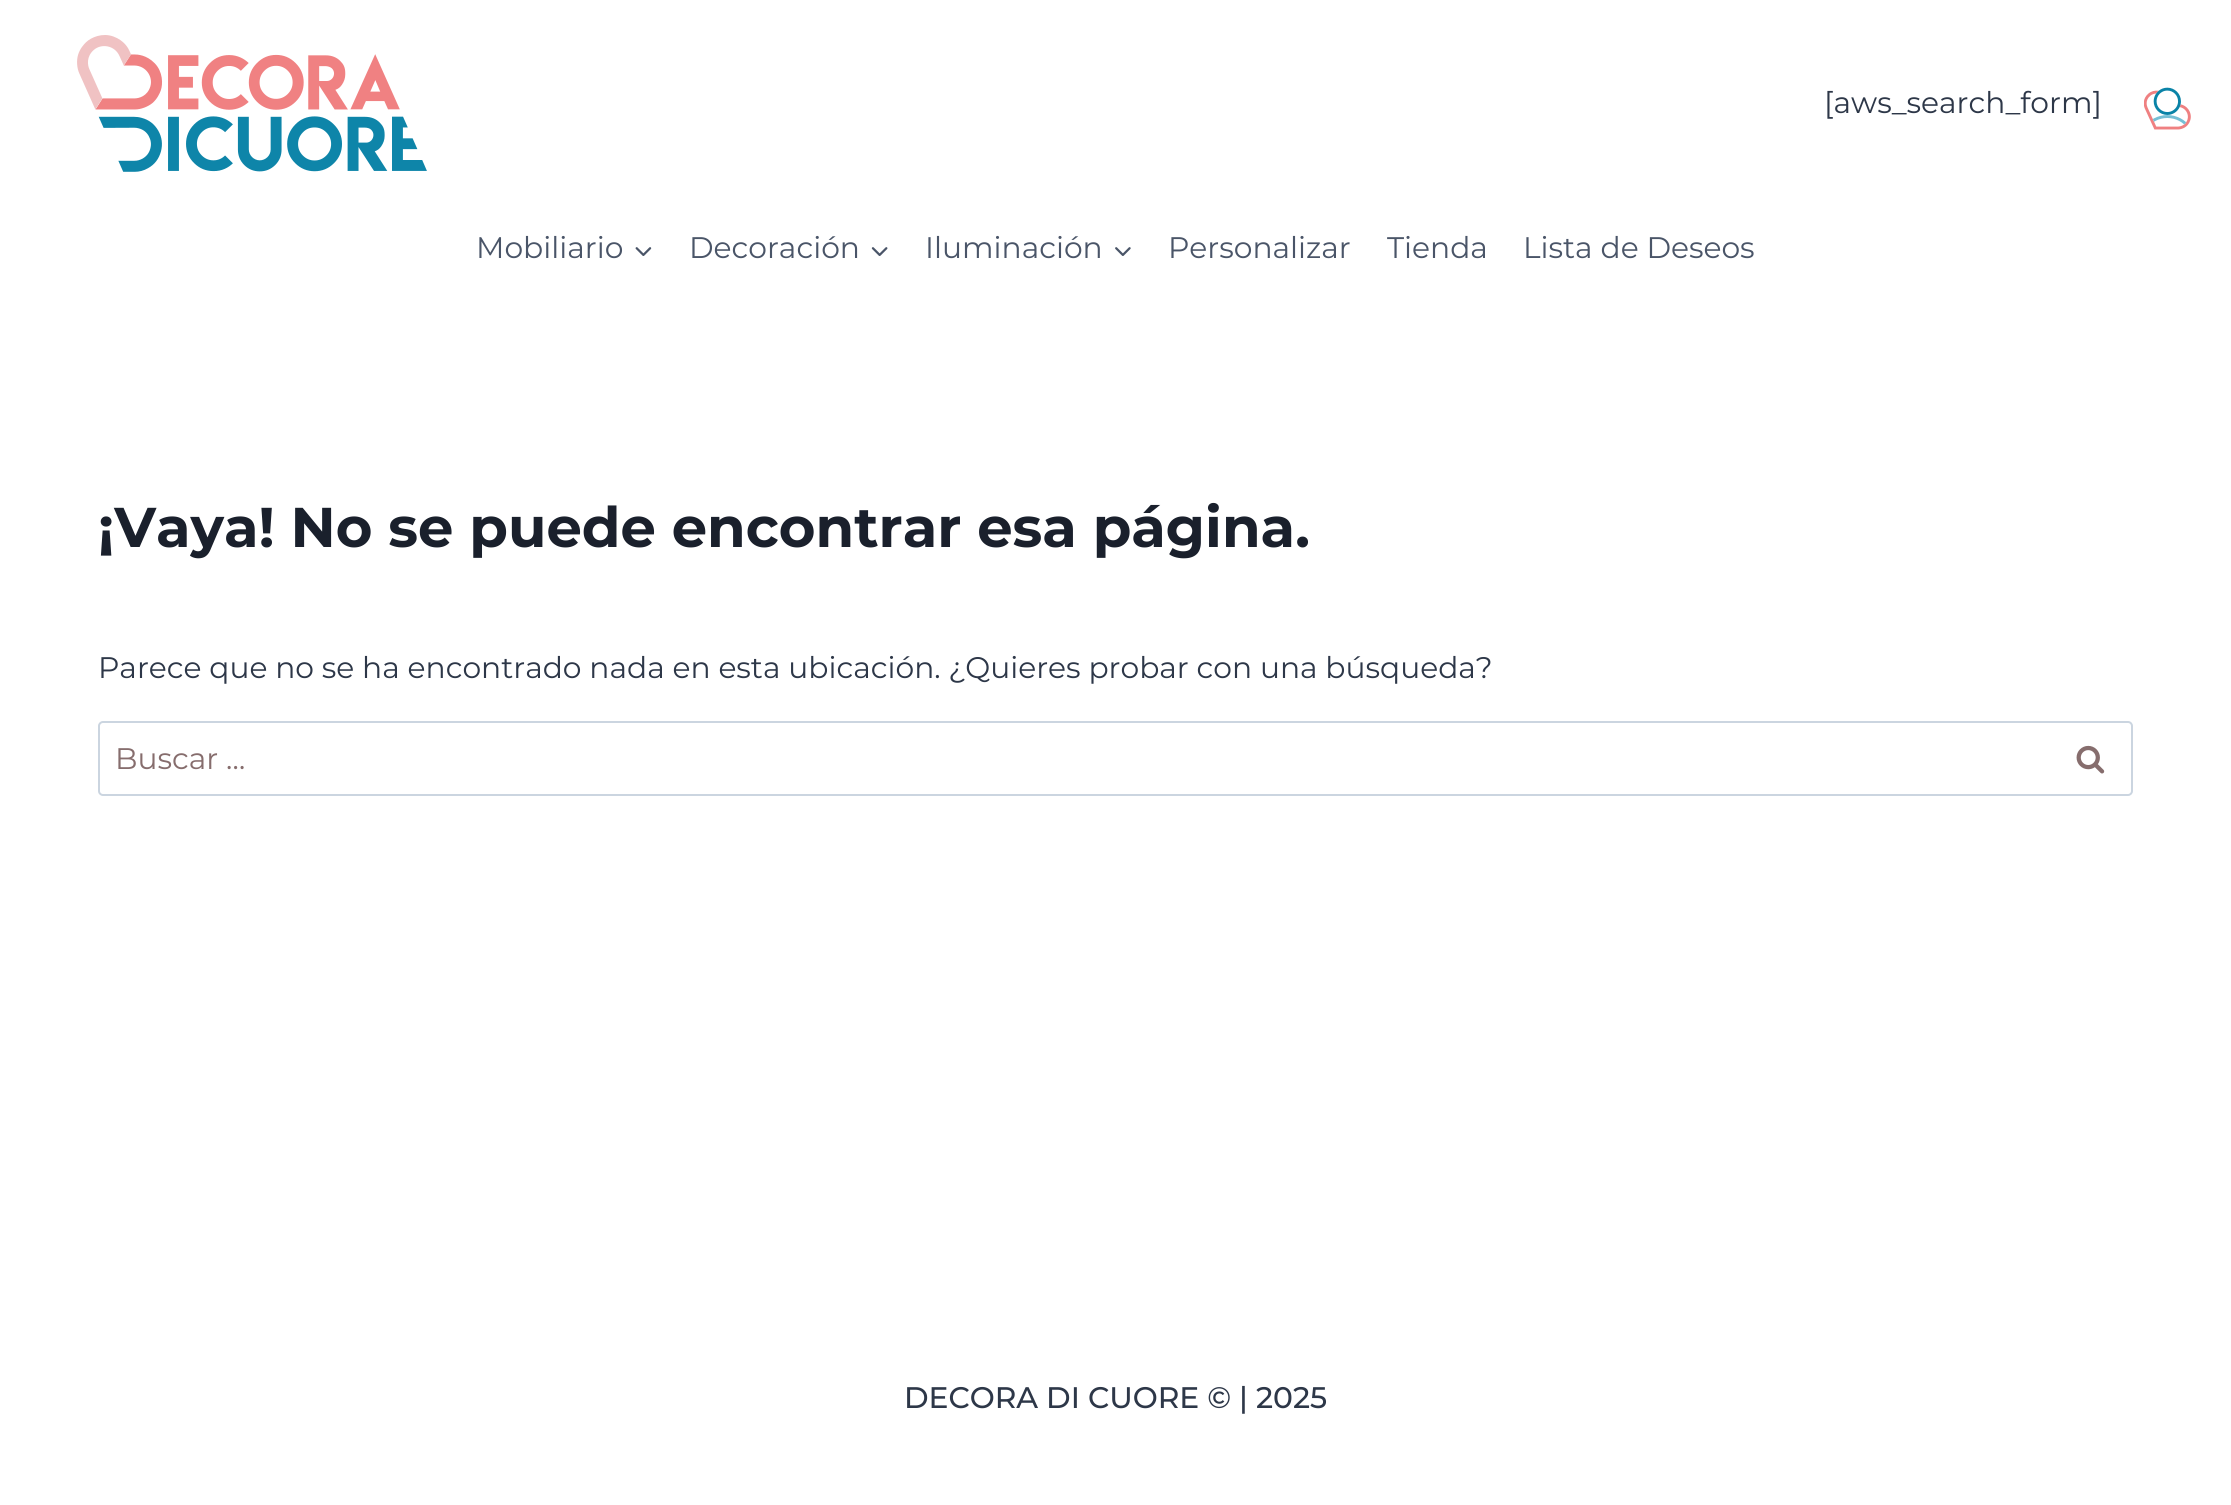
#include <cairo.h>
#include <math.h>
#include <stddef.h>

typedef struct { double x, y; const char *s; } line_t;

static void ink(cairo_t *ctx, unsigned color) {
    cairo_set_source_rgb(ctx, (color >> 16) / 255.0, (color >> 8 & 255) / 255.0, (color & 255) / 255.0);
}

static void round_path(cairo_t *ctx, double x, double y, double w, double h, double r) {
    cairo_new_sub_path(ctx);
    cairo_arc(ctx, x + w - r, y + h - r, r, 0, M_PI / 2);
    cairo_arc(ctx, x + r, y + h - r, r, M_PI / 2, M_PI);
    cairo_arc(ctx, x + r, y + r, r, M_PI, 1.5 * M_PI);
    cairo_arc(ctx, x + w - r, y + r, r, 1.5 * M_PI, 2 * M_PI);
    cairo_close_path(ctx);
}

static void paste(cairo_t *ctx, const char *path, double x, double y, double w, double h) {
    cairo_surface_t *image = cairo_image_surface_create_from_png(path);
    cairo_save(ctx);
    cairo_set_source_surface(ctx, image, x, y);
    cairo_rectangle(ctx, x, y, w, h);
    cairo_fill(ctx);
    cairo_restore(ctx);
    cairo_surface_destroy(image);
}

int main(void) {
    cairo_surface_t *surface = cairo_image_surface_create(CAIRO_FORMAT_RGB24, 2231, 1505);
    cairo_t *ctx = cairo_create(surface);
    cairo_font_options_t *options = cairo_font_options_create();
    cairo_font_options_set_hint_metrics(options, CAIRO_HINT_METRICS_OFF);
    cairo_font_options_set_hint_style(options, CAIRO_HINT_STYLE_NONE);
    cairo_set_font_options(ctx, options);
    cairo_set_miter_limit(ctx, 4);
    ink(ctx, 0xFFFFFF);
    cairo_paint(ctx);
    paste(ctx, "media/1.png", 77, 35, 350, 137);
    cairo_select_font_face(ctx, "Montserrat", CAIRO_FONT_SLANT_NORMAL, CAIRO_FONT_WEIGHT_NORMAL);
    cairo_set_font_size(ctx, 29.75);
    ink(ctx, 0x2D3748);
    cairo_move_to(ctx, 1824, 113);
    cairo_show_text(ctx, "[aws_search_form]");
    paste(ctx, "media/2.png", 2144, 87, 47, 43);
    ink(ctx, 0x4A5568);
    cairo_move_to(ctx, 476, 258);
    cairo_show_text(ctx, "Mobiliario");
    paste(ctx, "media/3.png", 635, 247, 17, 9);
    cairo_move_to(ctx, 689, 258);
    cairo_show_text(ctx, "Decoración");
    paste(ctx, "media/4.png", 871, 247, 17, 9);
    cairo_move_to(ctx, 925, 258);
    cairo_show_text(ctx, "Iluminación");
    paste(ctx, "media/5.png", 1115, 247, 16, 9);
    {
        static const line_t items[] = {
            {1168, 258, "Personalizar"},
            {1387, 258, "Tienda"},
            {1523, 258, "Lista de Deseos"},
        };
        for (size_t i = 0; i < sizeof items / sizeof *items; i++) {
            cairo_move_to(ctx, items[i].x, items[i].y);
            cairo_show_text(ctx, items[i].s);
        }
    }
    cairo_select_font_face(ctx, "Montserrat", CAIRO_FONT_SLANT_NORMAL, CAIRO_FONT_WEIGHT_BOLD);
    cairo_set_font_size(ctx, 56);
    ink(ctx, 0x1A202C);
    cairo_move_to(ctx, 98, 547);
    cairo_show_text(ctx, "¡Vaya! No se puede encontrar esa página.");
    cairo_select_font_face(ctx, "Montserrat", CAIRO_FONT_SLANT_NORMAL, CAIRO_FONT_WEIGHT_NORMAL);
    cairo_set_font_size(ctx, 29.75);
    ink(ctx, 0x2D3748);
    cairo_move_to(ctx, 98, 678);
    cairo_show_text(ctx, "Parece que no se ha encontrado nada en esta ubicación. ¿Quieres probar con una búsqueda?");
    round_path(ctx, 99, 722, 2033, 73, 4);
    ink(ctx, 0xCBD5E0);
    cairo_stroke(ctx);
    ink(ctx, 0x866D6D);
    cairo_move_to(ctx, 115, 769);
    cairo_show_text(ctx, "Buscar …");
    paste(ctx, "media/6.png", 2076, 745, 29, 29);
    cairo_select_font_face(ctx, "Montserrat Medium", CAIRO_FONT_SLANT_NORMAL, CAIRO_FONT_WEIGHT_NORMAL);
    ink(ctx, 0x2D3748);
    cairo_move_to(ctx, 904, 1408);
    cairo_show_text(ctx, "DECORA DI CUORE © | 2025");
    cairo_surface_write_to_png(surface, "image.png");
    cairo_font_options_destroy(options);
    cairo_destroy(ctx);
    cairo_surface_destroy(surface);
    return 0;
}
